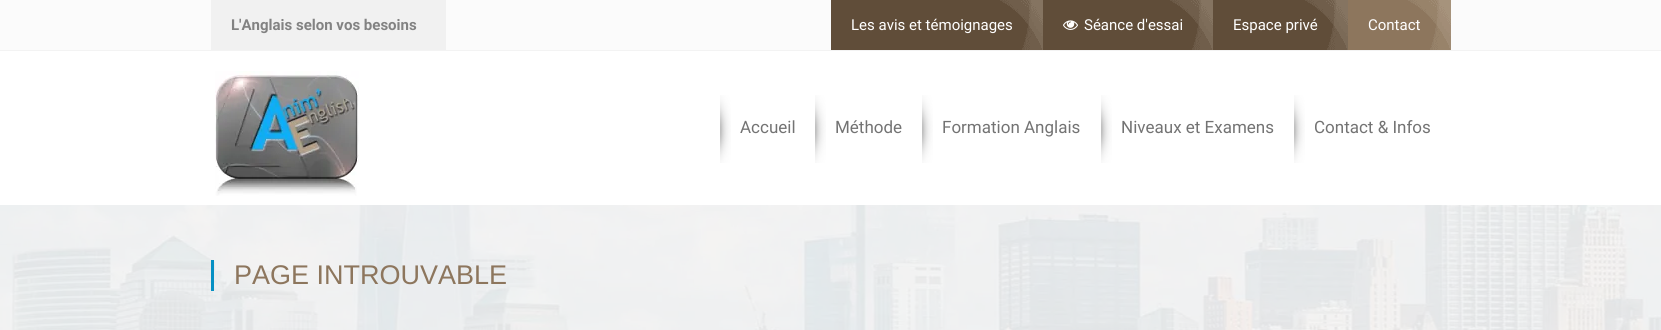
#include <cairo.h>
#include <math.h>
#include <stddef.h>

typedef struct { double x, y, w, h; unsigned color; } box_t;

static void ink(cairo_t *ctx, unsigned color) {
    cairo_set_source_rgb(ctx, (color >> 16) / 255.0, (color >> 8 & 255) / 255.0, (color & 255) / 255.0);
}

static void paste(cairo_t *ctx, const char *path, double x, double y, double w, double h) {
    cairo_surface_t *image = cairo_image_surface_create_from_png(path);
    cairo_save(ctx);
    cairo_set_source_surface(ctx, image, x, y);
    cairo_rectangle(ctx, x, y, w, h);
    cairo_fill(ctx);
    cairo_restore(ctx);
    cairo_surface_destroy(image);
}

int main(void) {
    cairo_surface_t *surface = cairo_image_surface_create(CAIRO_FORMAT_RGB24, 1661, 330);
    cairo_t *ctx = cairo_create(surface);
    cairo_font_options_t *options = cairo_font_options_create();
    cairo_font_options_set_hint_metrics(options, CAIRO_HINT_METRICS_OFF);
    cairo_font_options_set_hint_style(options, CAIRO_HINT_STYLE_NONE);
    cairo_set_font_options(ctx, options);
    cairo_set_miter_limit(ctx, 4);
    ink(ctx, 0xFFFFFF);
    cairo_paint(ctx);
    {
        static const box_t items[] = {
            {0, 0, 1661, 50, 0xFBFBFB},
            {0, 50, 1661, 1, 0xF3F3F3},
            {211, 0, 235, 50, 0xF1F1F1},
        };
        for (size_t i = 0; i < sizeof items / sizeof *items; i++) {
            ink(ctx, items[i].color);
            cairo_rectangle(ctx, items[i].x, items[i].y, items[i].w, items[i].h);
            cairo_fill(ctx);
        }
    }
    cairo_select_font_face(ctx, "Roboto", CAIRO_FONT_SLANT_NORMAL, CAIRO_FONT_WEIGHT_BOLD);
    cairo_set_font_size(ctx, 15);
    ink(ctx, 0x828282);
    cairo_move_to(ctx, 231, 30);
    cairo_show_text(ctx, "L'Anglais selon vos besoins");
    ink(ctx, 0x604D39);
    cairo_rectangle(ctx, 831, 0, 517, 50);
    cairo_fill(ctx);
    paste(ctx, "media/1.png", 1000, 0, 43, 50);
    cairo_select_font_face(ctx, "Roboto", CAIRO_FONT_SLANT_NORMAL, CAIRO_FONT_WEIGHT_NORMAL);
    ink(ctx, 0xFFFFFF);
    cairo_move_to(ctx, 851, 30);
    cairo_show_text(ctx, "Les avis et témoignages");
    paste(ctx, "media/1.png", 1170, 0, 43, 50);
    paste(ctx, "media/2.png", 1063, 20, 15, 10);
    cairo_move_to(ctx, 1084, 30);
    cairo_show_text(ctx, "Séance d'essai");
    paste(ctx, "media/1.png", 1305, 0, 43, 50);
    cairo_move_to(ctx, 1233, 30);
    cairo_show_text(ctx, "Espace privé");
    ink(ctx, 0x8D765D);
    cairo_rectangle(ctx, 1348, 0, 103, 50);
    cairo_fill(ctx);
    paste(ctx, "media/3.png", 1408, 0, 43, 50);
    ink(ctx, 0xFFFFFF);
    cairo_move_to(ctx, 1368, 30);
    cairo_show_text(ctx, "Contact");
    paste(ctx, "media/4.png", 215, 71, 144, 125);
    paste(ctx, "media/5.png", 720, 95, 11, 68);
    cairo_set_font_size(ctx, 17);
    ink(ctx, 0x737373);
    cairo_move_to(ctx, 740, 133);
    cairo_show_text(ctx, "Accueil");
    paste(ctx, "media/5.png", 815, 95, 11, 68);
    cairo_move_to(ctx, 835, 133);
    cairo_show_text(ctx, "Méthode");
    paste(ctx, "media/5.png", 922, 95, 11, 68);
    cairo_move_to(ctx, 942, 133);
    cairo_show_text(ctx, "Formation Anglais");
    paste(ctx, "media/5.png", 1101, 95, 11, 68);
    cairo_move_to(ctx, 1121, 133);
    cairo_show_text(ctx, "Niveaux et Examens");
    paste(ctx, "media/5.png", 1294, 95, 11, 68);
    cairo_move_to(ctx, 1314, 133);
    cairo_show_text(ctx, "Contact & Infos");
    paste(ctx, "media/6.png", 0, 205, 1661, 125);
    ink(ctx, 0x0690C4);
    cairo_rectangle(ctx, 211, 260, 3, 31);
    cairo_fill(ctx);
    cairo_select_font_face(ctx, "Liberation Sans", CAIRO_FONT_SLANT_NORMAL, CAIRO_FONT_WEIGHT_NORMAL);
    cairo_set_font_size(ctx, 27);
    ink(ctx, 0x8D765D);
    cairo_move_to(ctx, 234, 284);
    cairo_show_text(ctx, "PAGE INTROUVABLE");
    cairo_surface_write_to_png(surface, "image.png");
    cairo_font_options_destroy(options);
    cairo_destroy(ctx);
    cairo_surface_destroy(surface);
    return 0;
}
